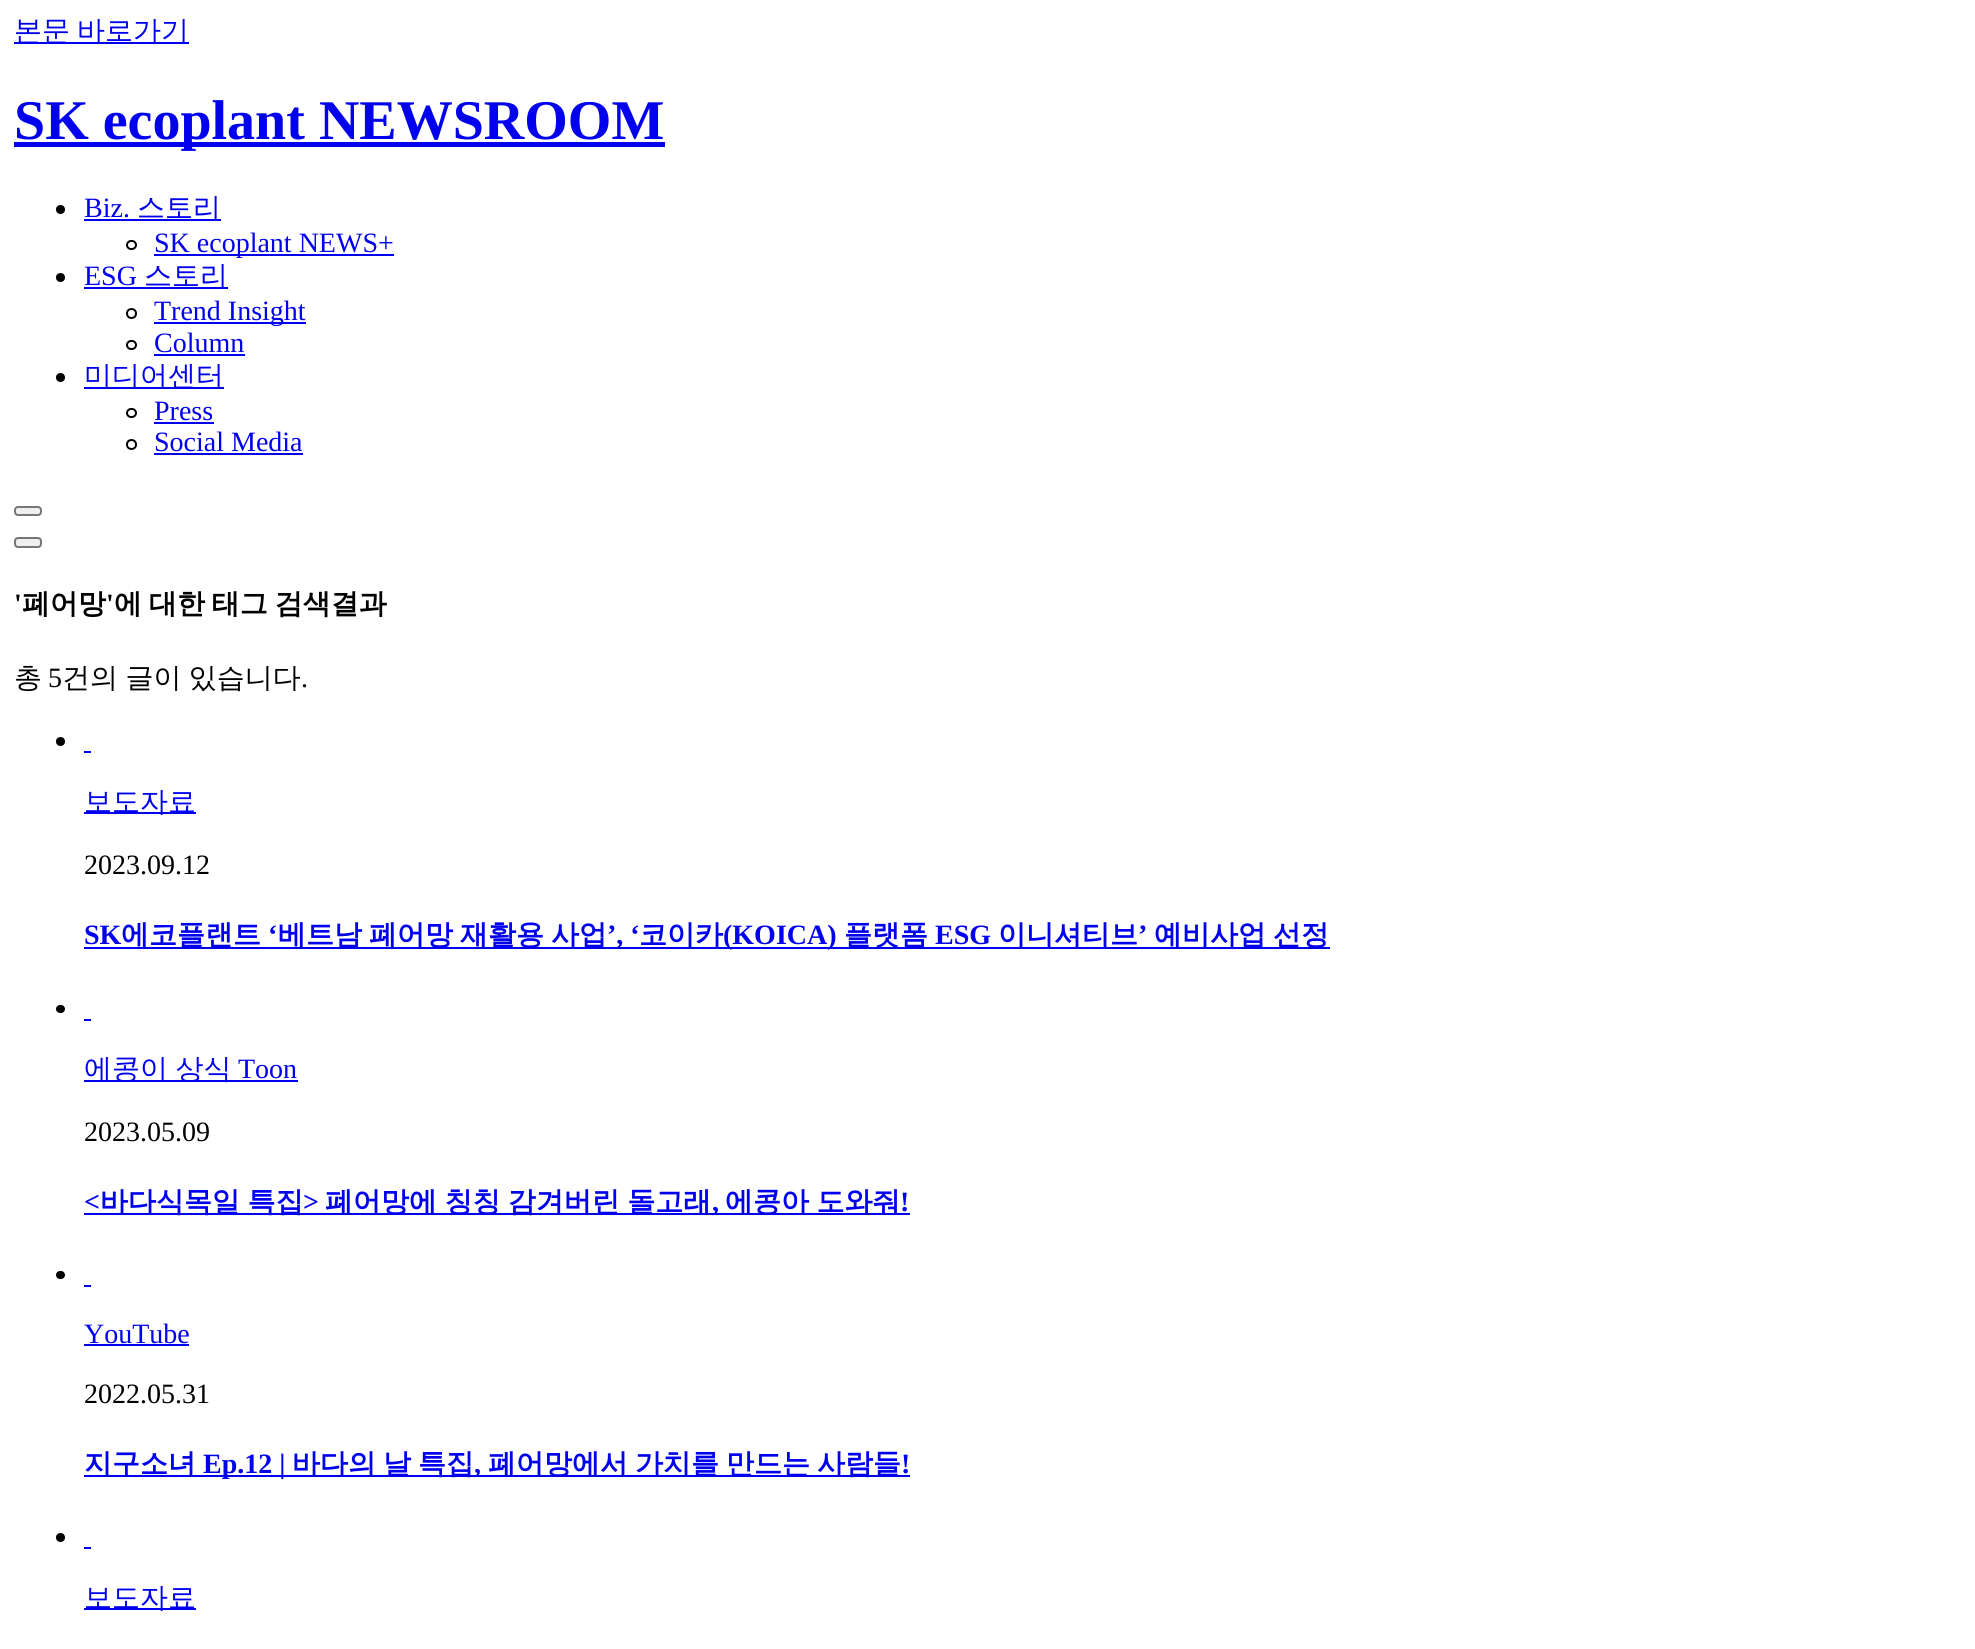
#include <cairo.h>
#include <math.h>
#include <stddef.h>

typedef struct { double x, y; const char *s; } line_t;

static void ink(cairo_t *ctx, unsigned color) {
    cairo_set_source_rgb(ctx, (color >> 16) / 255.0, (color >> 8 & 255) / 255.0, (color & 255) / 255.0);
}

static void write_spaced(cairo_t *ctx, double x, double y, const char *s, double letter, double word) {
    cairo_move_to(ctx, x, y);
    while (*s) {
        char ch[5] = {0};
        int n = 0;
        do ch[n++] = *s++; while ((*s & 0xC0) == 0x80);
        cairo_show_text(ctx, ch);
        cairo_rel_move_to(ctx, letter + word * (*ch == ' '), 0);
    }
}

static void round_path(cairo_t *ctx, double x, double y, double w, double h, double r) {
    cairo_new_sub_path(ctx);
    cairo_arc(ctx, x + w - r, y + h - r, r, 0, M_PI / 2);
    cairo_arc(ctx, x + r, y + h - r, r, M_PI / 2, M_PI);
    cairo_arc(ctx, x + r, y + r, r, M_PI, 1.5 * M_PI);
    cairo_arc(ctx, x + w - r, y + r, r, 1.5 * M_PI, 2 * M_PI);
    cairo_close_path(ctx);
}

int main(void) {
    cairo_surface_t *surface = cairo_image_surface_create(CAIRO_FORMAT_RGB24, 1975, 1649);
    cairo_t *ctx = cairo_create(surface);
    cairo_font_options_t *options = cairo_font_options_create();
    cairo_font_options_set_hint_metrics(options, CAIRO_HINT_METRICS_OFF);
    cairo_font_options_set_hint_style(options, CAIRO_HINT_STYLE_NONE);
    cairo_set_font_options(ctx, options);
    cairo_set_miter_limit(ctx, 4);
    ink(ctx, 0xFFFFFF);
    cairo_paint(ctx);
    ink(ctx, 0x0000EE);
    cairo_rectangle(ctx, 14, 42, 175, 2);
    cairo_fill(ctx);
    cairo_select_font_face(ctx, "WenQuanYi Zen Hei Medium", CAIRO_FONT_SLANT_NORMAL, CAIRO_FONT_WEIGHT_NORMAL);
    cairo_set_font_size(ctx, 28);
    write_spaced(ctx, 14, 40, "본문 바로가기", 0, -1.5);
    cairo_rectangle(ctx, 14, 142, 651, 5);
    cairo_fill(ctx);
    cairo_select_font_face(ctx, "Liberation Serif", CAIRO_FONT_SLANT_NORMAL, CAIRO_FONT_WEIGHT_BOLD);
    cairo_set_font_size(ctx, 56);
    cairo_move_to(ctx, 14, 139);
    cairo_show_text(ctx, "SK ecoplant NEWSROOM");
    ink(ctx, 0x000000);
    cairo_new_path(ctx);
    cairo_arc(ctx, 60.5, 209.5, 4.5, 0, 2 * M_PI);
    cairo_fill(ctx);
    cairo_select_font_face(ctx, "Liberation Serif", CAIRO_FONT_SLANT_NORMAL, CAIRO_FONT_WEIGHT_NORMAL);
    cairo_set_font_size(ctx, 28);
    ink(ctx, 0x0000EE);
    cairo_move_to(ctx, 84, 217);
    cairo_show_text(ctx, "Biz.");
    cairo_rectangle(ctx, 84, 219, 137, 2);
    cairo_fill(ctx);
    cairo_select_font_face(ctx, "WenQuanYi Zen Hei Medium", CAIRO_FONT_SLANT_NORMAL, CAIRO_FONT_WEIGHT_NORMAL);
    cairo_move_to(ctx, 137, 217);
    cairo_show_text(ctx, "스토리");
    round_path(ctx, 127, 241, 9, 8, 4);
    ink(ctx, 0x000000);
    cairo_stroke(ctx);
    ink(ctx, 0x0000EE);
    cairo_rectangle(ctx, 154, 254, 240, 2);
    cairo_fill(ctx);
    cairo_select_font_face(ctx, "Liberation Serif", CAIRO_FONT_SLANT_NORMAL, CAIRO_FONT_WEIGHT_NORMAL);
    cairo_move_to(ctx, 154, 252);
    cairo_show_text(ctx, "SK ecoplant NEWS+");
    ink(ctx, 0x000000);
    cairo_new_path(ctx);
    cairo_arc(ctx, 60.5, 277.5, 4.5, 0, 2 * M_PI);
    cairo_fill(ctx);
    ink(ctx, 0x0000EE);
    cairo_move_to(ctx, 84, 285);
    cairo_show_text(ctx, "ESG");
    cairo_rectangle(ctx, 84, 287, 144, 2);
    cairo_fill(ctx);
    cairo_select_font_face(ctx, "WenQuanYi Zen Hei Medium", CAIRO_FONT_SLANT_NORMAL, CAIRO_FONT_WEIGHT_NORMAL);
    cairo_move_to(ctx, 144, 285);
    cairo_show_text(ctx, "스토리");
    cairo_new_path(ctx);
    cairo_arc(ctx, 131.5, 313.5, 4.5, 0, 2 * M_PI);
    ink(ctx, 0x000000);
    cairo_stroke(ctx);
    ink(ctx, 0x0000EE);
    cairo_rectangle(ctx, 154, 322, 152, 2);
    cairo_fill(ctx);
    cairo_select_font_face(ctx, "Liberation Serif", CAIRO_FONT_SLANT_NORMAL, CAIRO_FONT_WEIGHT_NORMAL);
    cairo_move_to(ctx, 154, 320);
    cairo_show_text(ctx, "Trend Insight");
    round_path(ctx, 127, 341, 9, 8, 4);
    ink(ctx, 0x000000);
    cairo_stroke(ctx);
    ink(ctx, 0x0000EE);
    cairo_move_to(ctx, 154, 352);
    cairo_show_text(ctx, "Column");
    cairo_rectangle(ctx, 154, 354, 91, 2);
    cairo_fill(ctx);
    ink(ctx, 0x000000);
    cairo_arc(ctx, 60.5, 377.5, 4.5, 0, 2 * M_PI);
    cairo_fill(ctx);
    ink(ctx, 0x0000EE);
    cairo_rectangle(ctx, 84, 387, 140, 2);
    cairo_fill(ctx);
    cairo_select_font_face(ctx, "WenQuanYi Zen Hei Medium", CAIRO_FONT_SLANT_NORMAL, CAIRO_FONT_WEIGHT_NORMAL);
    cairo_move_to(ctx, 84, 385);
    cairo_show_text(ctx, "미디어센터");
    round_path(ctx, 127, 409, 9, 8, 4);
    ink(ctx, 0x000000);
    cairo_stroke(ctx);
    cairo_select_font_face(ctx, "Liberation Serif", CAIRO_FONT_SLANT_NORMAL, CAIRO_FONT_WEIGHT_NORMAL);
    ink(ctx, 0x0000EE);
    cairo_move_to(ctx, 154, 420);
    cairo_show_text(ctx, "Press");
    cairo_rectangle(ctx, 154, 422, 60, 2);
    cairo_fill(ctx);
    cairo_arc(ctx, 131.5, 444.5, 4.5, 0, 2 * M_PI);
    ink(ctx, 0x000000);
    cairo_stroke(ctx);
    ink(ctx, 0x0000EE);
    cairo_move_to(ctx, 154, 451);
    cairo_show_text(ctx, "Social Media");
    cairo_rectangle(ctx, 154, 453, 149, 2);
    cairo_fill(ctx);
    ink(ctx, 0xEFEFEF);
    round_path(ctx, 15, 507, 26, 8, 3);
    cairo_fill_preserve(ctx);
    ink(ctx, 0x767676);
    cairo_stroke(ctx);
    ink(ctx, 0xEFEFEF);
    round_path(ctx, 15, 538, 26, 9, 3);
    cairo_fill_preserve(ctx);
    ink(ctx, 0x767676);
    cairo_stroke(ctx);
    cairo_select_font_face(ctx, "Liberation Serif", CAIRO_FONT_SLANT_NORMAL, CAIRO_FONT_WEIGHT_BOLD);
    ink(ctx, 0x000000);
    cairo_move_to(ctx, 14, 613);
    cairo_show_text(ctx, "'");
    cairo_select_font_face(ctx, "WenQuanYi Zen Hei", CAIRO_FONT_SLANT_NORMAL, CAIRO_FONT_WEIGHT_BOLD);
    cairo_move_to(ctx, 22, 613);
    cairo_show_text(ctx, "폐어망");
    cairo_select_font_face(ctx, "Liberation Serif", CAIRO_FONT_SLANT_NORMAL, CAIRO_FONT_WEIGHT_BOLD);
    cairo_move_to(ctx, 106, 613);
    cairo_show_text(ctx, "'");
    cairo_select_font_face(ctx, "WenQuanYi Zen Hei", CAIRO_FONT_SLANT_NORMAL, CAIRO_FONT_WEIGHT_BOLD);
    write_spaced(ctx, 114, 613, "에 대한 태그 검색결과", 0, -1.5);
    cairo_select_font_face(ctx, "WenQuanYi Zen Hei Medium", CAIRO_FONT_SLANT_NORMAL, CAIRO_FONT_WEIGHT_NORMAL);
    cairo_move_to(ctx, 14, 687);
    cairo_show_text(ctx, "총");
    cairo_select_font_face(ctx, "Liberation Serif", CAIRO_FONT_SLANT_NORMAL, CAIRO_FONT_WEIGHT_NORMAL);
    cairo_move_to(ctx, 48, 687);
    cairo_show_text(ctx, "5");
    cairo_select_font_face(ctx, "WenQuanYi Zen Hei Medium", CAIRO_FONT_SLANT_NORMAL, CAIRO_FONT_WEIGHT_NORMAL);
    write_spaced(ctx, 62, 687, "건의 글이 있습니다", 0, -1);
    cairo_select_font_face(ctx, "Liberation Serif", CAIRO_FONT_SLANT_NORMAL, CAIRO_FONT_WEIGHT_NORMAL);
    cairo_move_to(ctx, 301, 687);
    cairo_show_text(ctx, ".");
    cairo_new_path(ctx);
    cairo_arc(ctx, 60.5, 741.5, 4.5, 0, 2 * M_PI);
    cairo_fill(ctx);
    ink(ctx, 0x0000EE);
    cairo_rectangle(ctx, 84, 751, 7, 2);
    cairo_fill(ctx);
    cairo_rectangle(ctx, 84, 812, 112, 2);
    cairo_fill(ctx);
    cairo_select_font_face(ctx, "WenQuanYi Zen Hei Medium", CAIRO_FONT_SLANT_NORMAL, CAIRO_FONT_WEIGHT_NORMAL);
    cairo_move_to(ctx, 84, 811);
    cairo_show_text(ctx, "보도자료");
    cairo_select_font_face(ctx, "Liberation Serif", CAIRO_FONT_SLANT_NORMAL, CAIRO_FONT_WEIGHT_NORMAL);
    ink(ctx, 0x000000);
    cairo_move_to(ctx, 84, 874);
    cairo_show_text(ctx, "2023.09.12");
    cairo_select_font_face(ctx, "Liberation Serif", CAIRO_FONT_SLANT_NORMAL, CAIRO_FONT_WEIGHT_BOLD);
    ink(ctx, 0x0000EE);
    cairo_move_to(ctx, 84, 944);
    cairo_show_text(ctx, "SK");
    cairo_rectangle(ctx, 84, 947, 1246, 2);
    cairo_fill(ctx);
    cairo_select_font_face(ctx, "WenQuanYi Zen Hei", CAIRO_FONT_SLANT_NORMAL, CAIRO_FONT_WEIGHT_BOLD);
    cairo_move_to(ctx, 121, 944);
    cairo_show_text(ctx, "에코플랜트");
    cairo_select_font_face(ctx, "Liberation Serif", CAIRO_FONT_SLANT_NORMAL, CAIRO_FONT_WEIGHT_BOLD);
    cairo_move_to(ctx, 268, 944);
    cairo_show_text(ctx, "‘");
    cairo_select_font_face(ctx, "WenQuanYi Zen Hei", CAIRO_FONT_SLANT_NORMAL, CAIRO_FONT_WEIGHT_BOLD);
    {
        static const line_t items[] = {
            {278, 944, "베트남"},
            {369, 944, "폐어망"},
            {460, 944, "재활용"},
            {551, 944, "사업"},
        };
        for (size_t i = 0; i < sizeof items / sizeof *items; i++) {
            cairo_move_to(ctx, items[i].x, items[i].y);
            cairo_show_text(ctx, items[i].s);
        }
    }
    cairo_select_font_face(ctx, "Liberation Serif", CAIRO_FONT_SLANT_NORMAL, CAIRO_FONT_WEIGHT_BOLD);
    cairo_move_to(ctx, 607, 944);
    cairo_show_text(ctx, "’, ‘");
    cairo_select_font_face(ctx, "WenQuanYi Zen Hei", CAIRO_FONT_SLANT_NORMAL, CAIRO_FONT_WEIGHT_BOLD);
    cairo_move_to(ctx, 639, 944);
    cairo_show_text(ctx, "코이카");
    cairo_select_font_face(ctx, "Liberation Serif", CAIRO_FONT_SLANT_NORMAL, CAIRO_FONT_WEIGHT_BOLD);
    cairo_move_to(ctx, 723, 944);
    cairo_show_text(ctx, "(KOICA)");
    cairo_select_font_face(ctx, "WenQuanYi Zen Hei", CAIRO_FONT_SLANT_NORMAL, CAIRO_FONT_WEIGHT_BOLD);
    cairo_move_to(ctx, 844, 944);
    cairo_show_text(ctx, "플랫폼");
    cairo_select_font_face(ctx, "Liberation Serif", CAIRO_FONT_SLANT_NORMAL, CAIRO_FONT_WEIGHT_BOLD);
    cairo_move_to(ctx, 935, 944);
    cairo_show_text(ctx, "ESG");
    cairo_select_font_face(ctx, "WenQuanYi Zen Hei", CAIRO_FONT_SLANT_NORMAL, CAIRO_FONT_WEIGHT_BOLD);
    cairo_move_to(ctx, 998, 944);
    cairo_show_text(ctx, "이니셔티브");
    cairo_select_font_face(ctx, "Liberation Serif", CAIRO_FONT_SLANT_NORMAL, CAIRO_FONT_WEIGHT_BOLD);
    cairo_move_to(ctx, 1138, 944);
    cairo_show_text(ctx, "’");
    cairo_select_font_face(ctx, "WenQuanYi Zen Hei", CAIRO_FONT_SLANT_NORMAL, CAIRO_FONT_WEIGHT_BOLD);
    cairo_move_to(ctx, 1154, 944);
    cairo_show_text(ctx, "예비사업");
    cairo_move_to(ctx, 1273, 944);
    cairo_show_text(ctx, "선정");
    ink(ctx, 0x000000);
    round_path(ctx, 56, 1005, 9, 8, 4);
    cairo_fill(ctx);
    ink(ctx, 0x0000EE);
    cairo_rectangle(ctx, 84, 1019, 7, 2);
    cairo_fill(ctx);
    cairo_rectangle(ctx, 84, 1080, 214, 2);
    cairo_fill(ctx);
    cairo_select_font_face(ctx, "WenQuanYi Zen Hei Medium", CAIRO_FONT_SLANT_NORMAL, CAIRO_FONT_WEIGHT_NORMAL);
    write_spaced(ctx, 84, 1078, "에콩이 상식", 0, -1);
    cairo_select_font_face(ctx, "Liberation Serif", CAIRO_FONT_SLANT_NORMAL, CAIRO_FONT_WEIGHT_NORMAL);
    cairo_move_to(ctx, 238, 1078);
    cairo_show_text(ctx, "Toon");
    ink(ctx, 0x000000);
    cairo_move_to(ctx, 84, 1141);
    cairo_show_text(ctx, "2023.05.09");
    cairo_select_font_face(ctx, "Liberation Serif", CAIRO_FONT_SLANT_NORMAL, CAIRO_FONT_WEIGHT_BOLD);
    ink(ctx, 0x0000EE);
    cairo_move_to(ctx, 84, 1211);
    cairo_show_text(ctx, "<");
    cairo_rectangle(ctx, 84, 1213, 826, 2);
    cairo_fill(ctx);
    cairo_select_font_face(ctx, "WenQuanYi Zen Hei", CAIRO_FONT_SLANT_NORMAL, CAIRO_FONT_WEIGHT_BOLD);
    write_spaced(ctx, 100, 1211, "바다식목일 특집", 0, -1);
    cairo_select_font_face(ctx, "Liberation Serif", CAIRO_FONT_SLANT_NORMAL, CAIRO_FONT_WEIGHT_BOLD);
    cairo_move_to(ctx, 303, 1211);
    cairo_show_text(ctx, ">");
    cairo_select_font_face(ctx, "WenQuanYi Zen Hei", CAIRO_FONT_SLANT_NORMAL, CAIRO_FONT_WEIGHT_BOLD);
    write_spaced(ctx, 325, 1211, "폐어망에 칭칭 감겨버린 돌고래", 0, -1);
    write_spaced(ctx, 725, 1211, "에콩아 도와줘", 0, -1);
    cairo_select_font_face(ctx, "Liberation Serif", CAIRO_FONT_SLANT_NORMAL, CAIRO_FONT_WEIGHT_BOLD);
    cairo_move_to(ctx, 900, 1211);
    cairo_show_text(ctx, "!");
    cairo_move_to(ctx, 712, 1211);
    cairo_show_text(ctx, ",");
    ink(ctx, 0x000000);
    round_path(ctx, 56, 1271, 9, 8, 4);
    cairo_fill(ctx);
    ink(ctx, 0x0000EE);
    cairo_rectangle(ctx, 84, 1285, 7, 2);
    cairo_fill(ctx);
    cairo_select_font_face(ctx, "Liberation Serif", CAIRO_FONT_SLANT_NORMAL, CAIRO_FONT_WEIGHT_NORMAL);
    cairo_move_to(ctx, 84, 1343);
    cairo_show_text(ctx, "YouTube");
    cairo_rectangle(ctx, 84, 1344, 105, 2);
    cairo_fill(ctx);
    ink(ctx, 0x000000);
    cairo_move_to(ctx, 84, 1403);
    cairo_show_text(ctx, "2022.05.31");
    ink(ctx, 0x0000EE);
    cairo_rectangle(ctx, 84, 1475, 826, 2);
    cairo_fill(ctx);
    cairo_select_font_face(ctx, "WenQuanYi Zen Hei", CAIRO_FONT_SLANT_NORMAL, CAIRO_FONT_WEIGHT_BOLD);
    cairo_move_to(ctx, 84, 1473);
    cairo_show_text(ctx, "지구소녀");
    cairo_select_font_face(ctx, "Liberation Serif", CAIRO_FONT_SLANT_NORMAL, CAIRO_FONT_WEIGHT_BOLD);
    cairo_move_to(ctx, 203, 1473);
    cairo_show_text(ctx, "Ep.12 |");
    cairo_select_font_face(ctx, "WenQuanYi Zen Hei", CAIRO_FONT_SLANT_NORMAL, CAIRO_FONT_WEIGHT_BOLD);
    {
        static const line_t items[] = {
            {292, 1473, "바다의"},
            {383, 1473, "날"},
            {418, 1473, "특집"},
        };
        for (size_t i = 0; i < sizeof items / sizeof *items; i++) {
            cairo_move_to(ctx, items[i].x, items[i].y);
            cairo_show_text(ctx, items[i].s);
        }
    }
    cairo_select_font_face(ctx, "Liberation Serif", CAIRO_FONT_SLANT_NORMAL, CAIRO_FONT_WEIGHT_BOLD);
    cairo_move_to(ctx, 474, 1473);
    cairo_show_text(ctx, ",");
    cairo_select_font_face(ctx, "WenQuanYi Zen Hei", CAIRO_FONT_SLANT_NORMAL, CAIRO_FONT_WEIGHT_BOLD);
    {
        static const line_t items[] = {
            {488, 1473, "폐어망에서"},
            {635, 1473, "가치를"},
            {726, 1473, "만드는"},
            {817, 1473, "사람들"},
        };
        for (size_t i = 0; i < sizeof items / sizeof *items; i++) {
            cairo_move_to(ctx, items[i].x, items[i].y);
            cairo_show_text(ctx, items[i].s);
        }
    }
    cairo_select_font_face(ctx, "Liberation Serif", CAIRO_FONT_SLANT_NORMAL, CAIRO_FONT_WEIGHT_BOLD);
    cairo_move_to(ctx, 901, 1473);
    cairo_show_text(ctx, "!");
    ink(ctx, 0x000000);
    cairo_new_path(ctx);
    cairo_arc(ctx, 60.5, 1537.5, 4.5, 0, 2 * M_PI);
    cairo_fill(ctx);
    ink(ctx, 0x0000EE);
    cairo_rectangle(ctx, 84, 1547, 7, 2);
    cairo_fill(ctx);
    cairo_rectangle(ctx, 84, 1608, 112, 2);
    cairo_fill(ctx);
    cairo_select_font_face(ctx, "WenQuanYi Zen Hei Medium", CAIRO_FONT_SLANT_NORMAL, CAIRO_FONT_WEIGHT_NORMAL);
    cairo_move_to(ctx, 84, 1607);
    cairo_show_text(ctx, "보도자료");
    cairo_surface_write_to_png(surface, "image.png");
    cairo_font_options_destroy(options);
    cairo_destroy(ctx);
    cairo_surface_destroy(surface);
    return 0;
}
